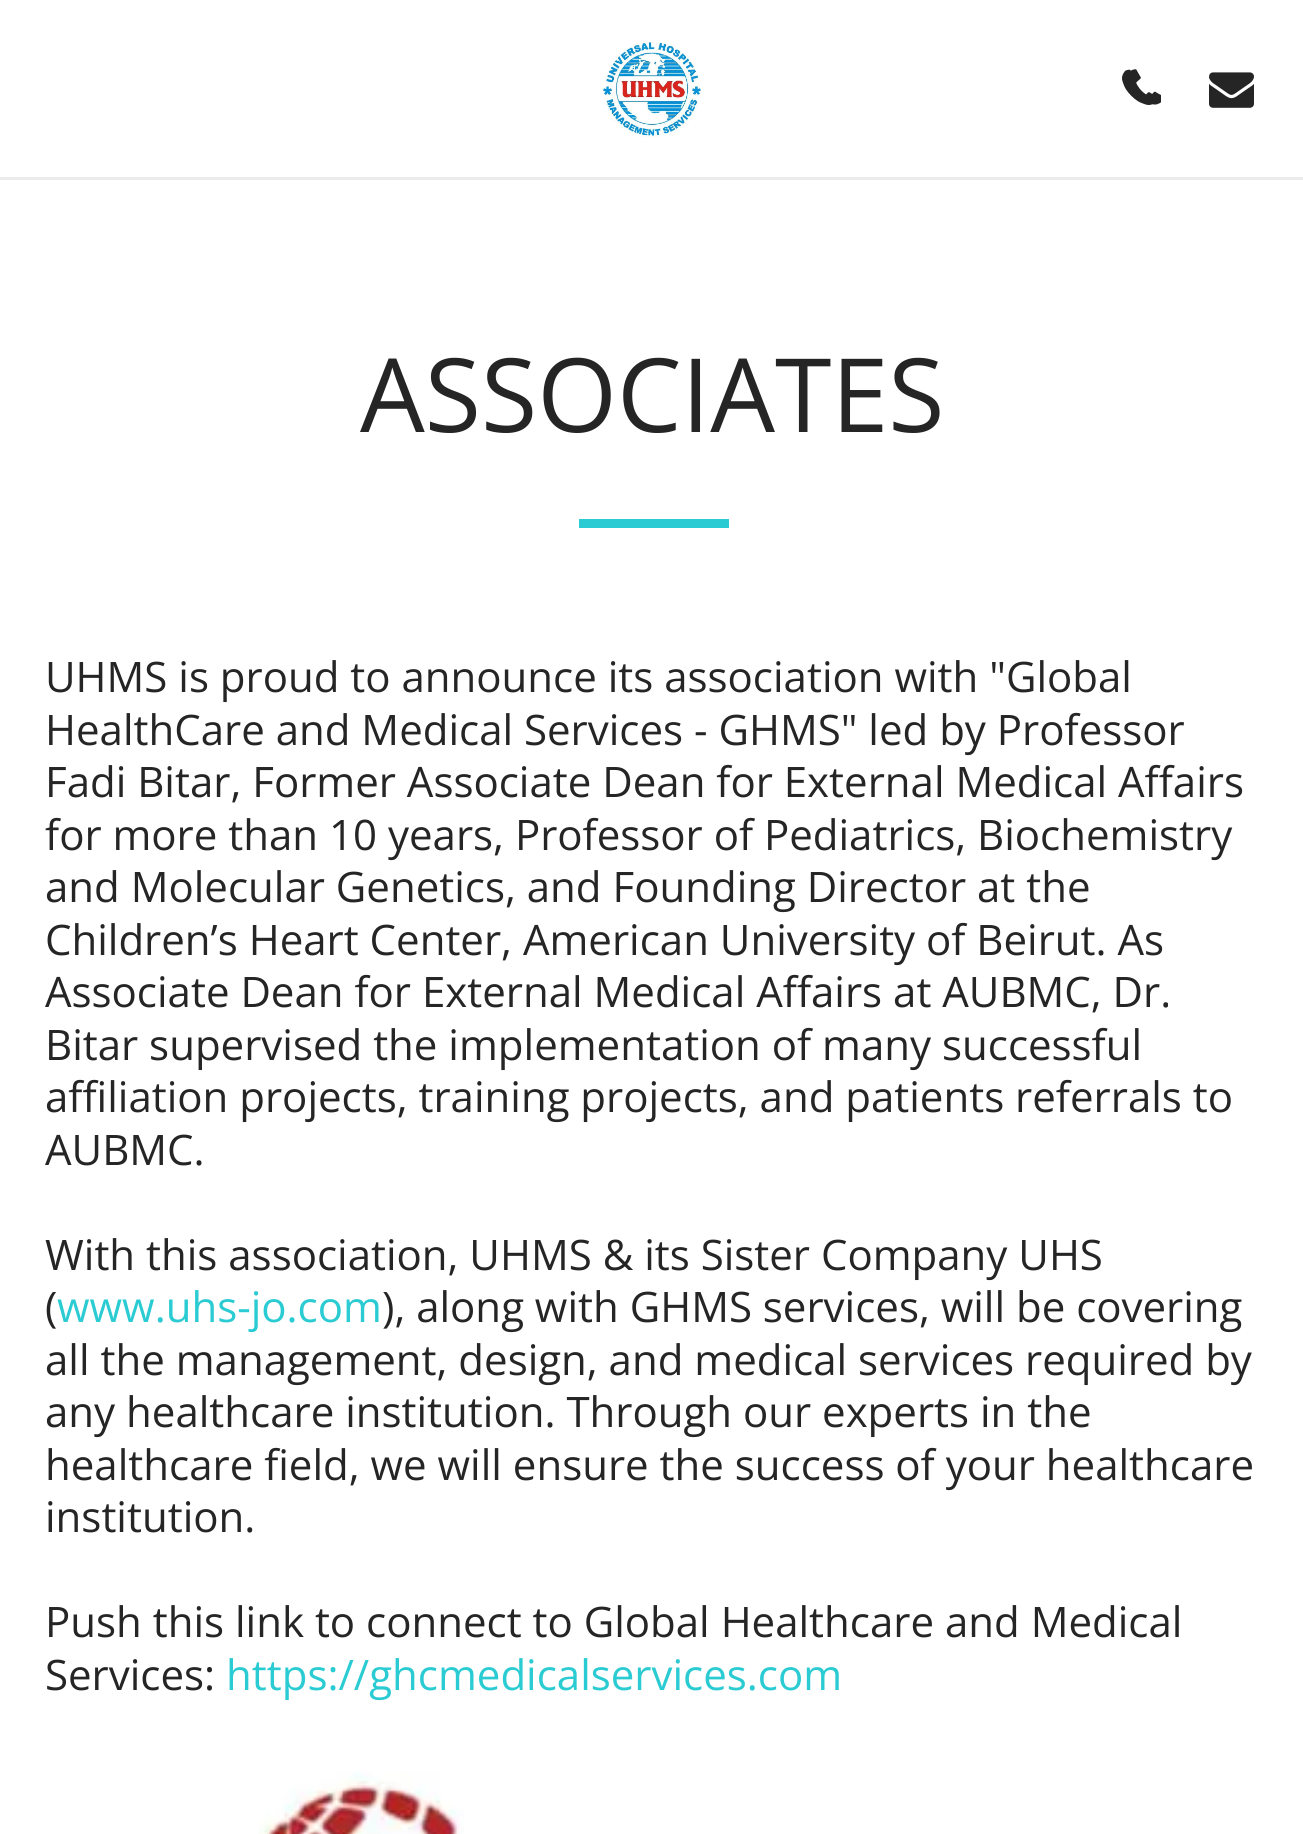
#include <cairo.h>
#include <math.h>
#include <stddef.h>

typedef struct { double x, y; const char *s; } line_t;

static void ink(cairo_t *ctx, unsigned color) {
    cairo_set_source_rgb(ctx, (color >> 16) / 255.0, (color >> 8 & 255) / 255.0, (color & 255) / 255.0);
}

static void paste(cairo_t *ctx, const char *path, double x, double y, double w, double h) {
    cairo_surface_t *image = cairo_image_surface_create_from_png(path);
    cairo_save(ctx);
    cairo_set_source_surface(ctx, image, x, y);
    cairo_rectangle(ctx, x, y, w, h);
    cairo_fill(ctx);
    cairo_restore(ctx);
    cairo_surface_destroy(image);
}

int main(void) {
    cairo_surface_t *surface = cairo_image_surface_create(CAIRO_FORMAT_RGB24, 1303, 1834);
    cairo_t *ctx = cairo_create(surface);
    cairo_font_options_t *options = cairo_font_options_create();
    cairo_font_options_set_hint_metrics(options, CAIRO_HINT_METRICS_OFF);
    cairo_font_options_set_hint_style(options, CAIRO_HINT_STYLE_NONE);
    cairo_set_font_options(ctx, options);
    cairo_set_miter_limit(ctx, 4);
    ink(ctx, 0xFFFFFF);
    cairo_paint(ctx);
    ink(ctx, 0xEBEBEB);
    cairo_rectangle(ctx, 0, 177, 1303, 3);
    cairo_fill(ctx);
    paste(ctx, "media/1.png", 602, 42, 99, 96);
    paste(ctx, "media/2.png", 1130, 69, 31, 36);
    paste(ctx, "media/3.png", 1122, 69, 31, 36);
    paste(ctx, "media/4.png", 1209, 72, 45, 36);
    cairo_select_font_face(ctx, "Open Sans", CAIRO_FONT_SLANT_NORMAL, CAIRO_FONT_WEIGHT_NORMAL);
    cairo_set_font_size(ctx, 102.5);
    ink(ctx, 0x252525);
    cairo_move_to(ctx, 360, 432);
    cairo_show_text(ctx, "ASSOCIATES");
    ink(ctx, 0x2ACBD2);
    cairo_rectangle(ctx, 579, 519, 150, 9);
    cairo_fill(ctx);
    cairo_set_font_size(ctx, 42);
    ink(ctx, 0x252525);
    {
        static const line_t items[] = {
            {45, 692, "UHMS is proud to announce its association with \"Global"},
            {45, 745, "HealthCare and Medical Services - GHMS\" led by Professor"},
            {45, 797, "Fadi Bitar, Former Associate Dean for External Medical Affairs"},
            {45, 850, "for more than 10 years, Professor of Pediatrics, Biochemistry"},
            {45, 902, "and Molecular Genetics, and Founding Director at the"},
            {45, 955, "Children’s Heart Center, American University of Beirut. As"},
            {45, 1007, "Associate Dean for External Medical Affairs at AUBMC, Dr."},
            {45, 1060, "Bitar supervised the implementation of many successful"},
            {45, 1112, "affiliation projects, training projects, and patients referrals to"},
            {45, 1165, "AUBMC."},
            {45, 1270, "With this association, UHMS & its Sister Company UHS"},
            {45, 1322, "("},
        };
        for (size_t i = 0; i < sizeof items / sizeof *items; i++) {
            cairo_move_to(ctx, items[i].x, items[i].y);
            cairo_show_text(ctx, items[i].s);
        }
    }
    ink(ctx, 0x2ACBD2);
    cairo_move_to(ctx, 57, 1322);
    cairo_show_text(ctx, "www.uhs-jo.com");
    ink(ctx, 0x252525);
    {
        static const line_t items[] = {
            {382, 1322, "), along with GHMS services, will be covering"},
            {45, 1375, "all the management, design, and medical services required by"},
            {45, 1427, "any healthcare institution. Through our experts in the"},
            {45, 1480, "healthcare field, we will ensure the success of your healthcare"},
            {45, 1532, "institution."},
            {45, 1637, "Push this link to connect to Global Healthcare and Medical"},
            {45, 1690, "Services:"},
        };
        for (size_t i = 0; i < sizeof items / sizeof *items; i++) {
            cairo_move_to(ctx, items[i].x, items[i].y);
            cairo_show_text(ctx, items[i].s);
        }
    }
    ink(ctx, 0x2ACBD2);
    cairo_move_to(ctx, 226, 1690);
    cairo_show_text(ctx, "https://ghcmedicalservices.com");
    paste(ctx, "media/5.png", 258, 1771, 206, 63);
    cairo_surface_write_to_png(surface, "image.png");
    cairo_font_options_destroy(options);
    cairo_destroy(ctx);
    cairo_surface_destroy(surface);
    return 0;
}
